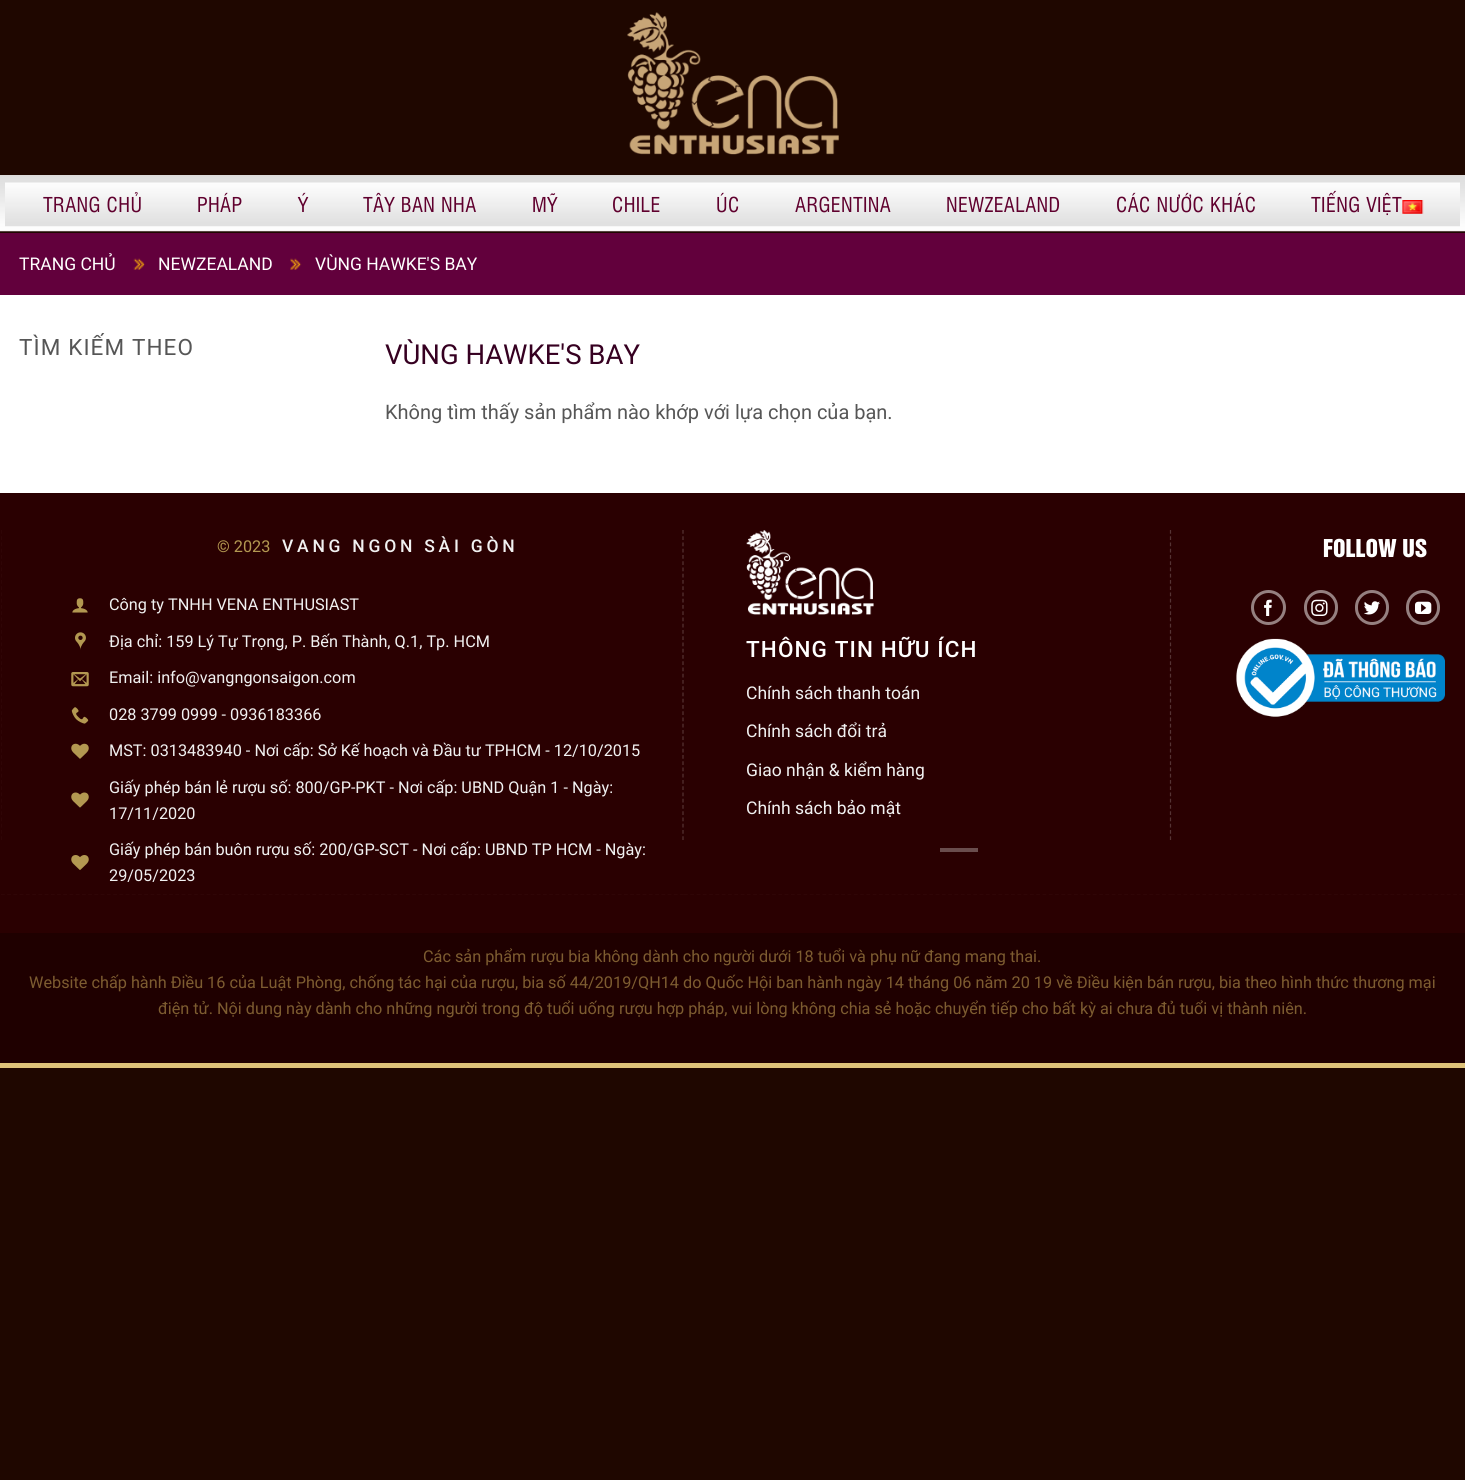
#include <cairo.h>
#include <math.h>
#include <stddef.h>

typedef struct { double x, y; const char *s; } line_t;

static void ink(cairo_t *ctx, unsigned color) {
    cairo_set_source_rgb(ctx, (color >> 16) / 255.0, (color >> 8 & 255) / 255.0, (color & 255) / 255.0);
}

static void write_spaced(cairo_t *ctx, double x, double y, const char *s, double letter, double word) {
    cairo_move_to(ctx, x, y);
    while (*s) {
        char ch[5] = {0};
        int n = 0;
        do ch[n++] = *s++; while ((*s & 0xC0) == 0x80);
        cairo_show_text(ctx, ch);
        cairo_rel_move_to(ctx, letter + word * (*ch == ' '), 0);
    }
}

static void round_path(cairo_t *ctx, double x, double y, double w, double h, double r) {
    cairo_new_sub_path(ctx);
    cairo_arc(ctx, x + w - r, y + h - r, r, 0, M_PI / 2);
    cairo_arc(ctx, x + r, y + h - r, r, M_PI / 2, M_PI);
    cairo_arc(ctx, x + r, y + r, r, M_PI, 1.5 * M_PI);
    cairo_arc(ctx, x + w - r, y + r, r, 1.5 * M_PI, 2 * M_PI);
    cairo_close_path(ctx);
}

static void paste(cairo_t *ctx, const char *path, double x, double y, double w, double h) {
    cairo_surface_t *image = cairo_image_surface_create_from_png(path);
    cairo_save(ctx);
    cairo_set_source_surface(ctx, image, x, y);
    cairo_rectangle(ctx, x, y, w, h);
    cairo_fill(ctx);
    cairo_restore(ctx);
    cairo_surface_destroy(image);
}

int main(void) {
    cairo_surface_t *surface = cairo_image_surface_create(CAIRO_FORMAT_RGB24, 1465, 1480);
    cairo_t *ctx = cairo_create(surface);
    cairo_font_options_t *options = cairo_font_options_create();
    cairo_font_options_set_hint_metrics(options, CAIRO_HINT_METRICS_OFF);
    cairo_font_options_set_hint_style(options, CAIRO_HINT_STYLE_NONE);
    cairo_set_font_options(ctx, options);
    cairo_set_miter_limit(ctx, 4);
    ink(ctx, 0x1F0700);
    cairo_paint(ctx);
    paste(ctx, "media/1.png", 627, 12, 212, 143);
    paste(ctx, "media/2.png", 0, 175, 1465, 57);
    paste(ctx, "media/3.png", 5, 182, 1455, 45);
    cairo_select_font_face(ctx, "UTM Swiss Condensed", CAIRO_FONT_SLANT_NORMAL, CAIRO_FONT_WEIGHT_NORMAL);
    cairo_set_font_size(ctx, 20);
    ink(ctx, 0x60002E);
    {
        static const line_t items[] = {
            {43, 212, "TRANG CHỦ"},
            {197, 212, "PHÁP"},
            {298, 212, "Ý"},
            {363, 212, "TÂY BAN NHA"},
            {532, 212, "MỸ"},
            {612, 212, "CHILE"},
            {716, 212, "ÚC"},
            {795, 212, "ARGENTINA"},
            {946, 212, "NEWZEALAND"},
            {1116, 212, "CÁC NƯỚC KHÁC"},
            {1311, 212, "TIẾNG VIỆT"},
        };
        for (size_t i = 0; i < sizeof items / sizeof *items; i++) {
            write_spaced(ctx, items[i].x, items[i].y, items[i].s, 0.4, 0);
        }
    }
    paste(ctx, "media/4.png", 1402, 200, 22, 14);
    ink(ctx, 0x62003C);
    cairo_rectangle(ctx, 0, 233, 1465, 62);
    cairo_fill(ctx);
    cairo_select_font_face(ctx, "Roboto", CAIRO_FONT_SLANT_NORMAL, CAIRO_FONT_WEIGHT_NORMAL);
    cairo_set_font_size(ctx, 17.5);
    ink(ctx, 0xFFFFFF);
    cairo_move_to(ctx, 19, 270);
    cairo_show_text(ctx, "TRANG CHỦ");
    paste(ctx, "media/5.png", 133, 258, 12, 12);
    cairo_move_to(ctx, 158, 270);
    cairo_show_text(ctx, "NEWZEALAND");
    paste(ctx, "media/6.png", 290, 258, 12, 12);
    cairo_move_to(ctx, 315, 270);
    cairo_show_text(ctx, "VÙNG HAWKE'S BAY");
    cairo_rectangle(ctx, 0, 295, 1465, 198);
    cairo_fill(ctx);
    cairo_set_font_size(ctx, 22.5);
    ink(ctx, 0x565656);
    write_spaced(ctx, 19, 355, "TÌM KIẾM THEO", 1.1, 0);
    cairo_set_font_size(ctx, 27.5);
    ink(ctx, 0x360021);
    cairo_move_to(ctx, 385, 364);
    cairo_show_text(ctx, "VÙNG HAWKE'S BAY");
    cairo_set_font_size(ctx, 20);
    ink(ctx, 0x565656);
    cairo_move_to(ctx, 385, 419);
    cairo_show_text(ctx, "Không tìm thấy sản phẩm nào khớp với lựa chọn của bạn.");
    ink(ctx, 0x2A0001);
    cairo_rectangle(ctx, 0, 493, 1465, 440);
    cairo_fill(ctx);
    cairo_save(ctx);
    cairo_rectangle(ctx, 1, 530, 1463, 365);
    cairo_clip(ctx);
    cairo_new_path(ctx);
    cairo_move_to(ctx, 0.5, 530);
    cairo_line_to(ctx, 0.5, 840);
    ink(ctx, 0x553334);
    cairo_set_line_width(ctx, 1.2);
    cairo_set_dash(ctx, (double[]){3.75, 2.5}, 2, 0);
    cairo_stroke(ctx);
    cairo_restore(ctx);
    cairo_set_font_size(ctx, 16.25);
    ink(ctx, 0xB39851);
    cairo_move_to(ctx, 217, 552);
    cairo_show_text(ctx, "© 2023");
    cairo_select_font_face(ctx, "Roboto Medium", CAIRO_FONT_SLANT_NORMAL, CAIRO_FONT_WEIGHT_NORMAL);
    cairo_set_font_size(ctx, 17.5);
    ink(ctx, 0xF1F1F1);
    write_spaced(ctx, 282, 552, "VANG NGON SÀI GÒN", 3.75, 0);
    paste(ctx, "media/7.png", 72, 598, 16, 15);
    cairo_select_font_face(ctx, "Roboto", CAIRO_FONT_SLANT_NORMAL, CAIRO_FONT_WEIGHT_NORMAL);
    cairo_set_font_size(ctx, 16.25);
    cairo_move_to(ctx, 109, 610);
    cairo_show_text(ctx, "Công ty TNHH VENA ENTHUSIAST");
    paste(ctx, "media/8.png", 75, 632, 11, 18);
    cairo_move_to(ctx, 109, 647);
    cairo_show_text(ctx, "Địa chỉ: 159 Lý Tự Trọng, P. Bến Thành, Q.1, Tp. HCM");
    paste(ctx, "media/9.png", 71, 672, 18, 15);
    cairo_move_to(ctx, 109, 683);
    cairo_show_text(ctx, "Email: info@vangngonsaigon.com");
    paste(ctx, "media/10.png", 71, 707, 18, 17);
    cairo_move_to(ctx, 109, 720);
    cairo_show_text(ctx, "028 3799 0999 - 0936183366");
    paste(ctx, "media/11.png", 71, 743, 18, 16);
    cairo_move_to(ctx, 109, 756);
    cairo_show_text(ctx, "MST: 0313483940 - Nơi cấp: Sở Kế hoạch và Đầu tư TPHCM - 12/10/2015");
    paste(ctx, "media/12.png", 71, 792, 18, 16);
    cairo_move_to(ctx, 109, 793);
    cairo_show_text(ctx, "Giấy phép bán lẻ rượu số: 800/GP-PKT - Nơi cấp: UBND Quận 1 - Ngày:");
    cairo_move_to(ctx, 109, 819);
    cairo_show_text(ctx, "17/11/2020");
    paste(ctx, "media/13.png", 71, 855, 18, 15);
    cairo_move_to(ctx, 109, 855);
    cairo_show_text(ctx, "Giấy phép bán buôn rượu số: 200/GP-SCT - Nơi cấp: UBND TP HCM - Ngày:");
    cairo_move_to(ctx, 109, 881);
    cairo_show_text(ctx, "29/05/2023");
    cairo_save(ctx);
    cairo_rectangle(ctx, 1, 530, 1463, 365);
    cairo_clip(ctx);
    cairo_new_path(ctx);
    cairo_move_to(ctx, 1, 895.5);
    cairo_line_to(ctx, 684, 895.5);
    ink(ctx, 0x553334);
    cairo_set_line_width(ctx, 1.2);
    cairo_set_dash(ctx, (double[]){3.75, 2.48}, 2, 0);
    cairo_stroke(ctx);
    cairo_restore(ctx);
    cairo_new_path(ctx);
    cairo_move_to(ctx, 1170.5, 530);
    cairo_line_to(ctx, 1170.5, 840);
    ink(ctx, 0x553334);
    cairo_set_line_width(ctx, 1.2);
    cairo_set_dash(ctx, (double[]){3.75, 2.5}, 2, 0);
    cairo_stroke(ctx);
    cairo_select_font_face(ctx, "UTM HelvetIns", CAIRO_FONT_SLANT_NORMAL, CAIRO_FONT_WEIGHT_NORMAL);
    cairo_set_font_size(ctx, 22.5);
    ink(ctx, 0xFFFFFF);
    cairo_move_to(ctx, 1323, 557);
    cairo_show_text(ctx, "FOLLOW US");
    cairo_new_path(ctx);
    cairo_arc(ctx, 1268.5, 607.5, 16, 0, 2 * M_PI);
    ink(ctx, 0x958080);
    cairo_set_line_width(ctx, 3);
    cairo_set_dash(ctx, NULL, 0, 0);
    cairo_stroke(ctx);
    paste(ctx, "media/14.png", 1264, 599, 8, 17);
    round_path(ctx, 1305.5, 591.5, 31, 32, 15.5);
    cairo_stroke(ctx);
    paste(ctx, "media/15.png", 1311, 599, 17, 17);
    round_path(ctx, 1356.5, 591.5, 31, 32, 15.5);
    cairo_stroke(ctx);
    paste(ctx, "media/16.png", 1364, 601, 16, 14);
    round_path(ctx, 1407.5, 591.5, 31, 32, 15.5);
    cairo_stroke(ctx);
    paste(ctx, "media/17.png", 1415, 601, 17, 13);
    paste(ctx, "media/18.png", 1236, 638, 209, 79);
    cairo_save(ctx);
    cairo_rectangle(ctx, 1, 530, 1463, 365);
    cairo_clip(ctx);
    cairo_new_path(ctx);
    cairo_move_to(ctx, 1171, 895.5);
    cairo_line_to(ctx, 1464, 895.5);
    ink(ctx, 0x553334);
    cairo_set_line_width(ctx, 1.2);
    cairo_set_dash(ctx, (double[]){3.75, 2.52}, 2, 0);
    cairo_stroke(ctx);
    cairo_restore(ctx);
    cairo_new_path(ctx);
    cairo_move_to(ctx, 683, 530);
    cairo_line_to(ctx, 683, 840);
    ink(ctx, 0x553334);
    cairo_set_line_width(ctx, 1.2);
    cairo_set_dash(ctx, (double[]){3.75, 2.5}, 2, 0);
    cairo_stroke(ctx);
    paste(ctx, "media/19.png", 746, 530, 128, 85);
    cairo_select_font_face(ctx, "Roboto Medium", CAIRO_FONT_SLANT_NORMAL, CAIRO_FONT_WEIGHT_NORMAL);
    ink(ctx, 0xFFFFFF);
    write_spaced(ctx, 746, 657, "THÔNG TIN HỮU ÍCH", 1.1, 0);
    cairo_select_font_face(ctx, "Roboto", CAIRO_FONT_SLANT_NORMAL, CAIRO_FONT_WEIGHT_NORMAL);
    cairo_set_font_size(ctx, 17.5);
    ink(ctx, 0xF1F1F1);
    {
        static const line_t items[] = {
            {746, 699, "Chính sách thanh toán"},
            {746, 737, "Chính sách đổi trả"},
            {746, 776, "Giao nhận & kiểm hàng"},
            {746, 814, "Chính sách bảo mật"},
        };
        for (size_t i = 0; i < sizeof items / sizeof *items; i++) {
            cairo_move_to(ctx, items[i].x, items[i].y);
            cairo_show_text(ctx, items[i].s);
        }
    }
    ink(ctx, 0x6A4D4D);
    cairo_rectangle(ctx, 940, 848, 38, 4);
    cairo_fill(ctx);
    cairo_save(ctx);
    cairo_rectangle(ctx, 1, 530, 1463, 365);
    cairo_clip(ctx);
    cairo_new_path(ctx);
    cairo_move_to(ctx, 684, 895.5);
    cairo_line_to(ctx, 1171, 895.5);
    ink(ctx, 0x553334);
    cairo_set_dash(ctx, (double[]){3.75, 2.54}, 2, 0);
    cairo_stroke(ctx);
    cairo_restore(ctx);
    ink(ctx, 0x1F0000);
    cairo_rectangle(ctx, 0, 933, 1465, 130);
    cairo_fill(ctx);
    ink(ctx, 0xDEC279);
    cairo_rectangle(ctx, 0, 1063, 1465, 5);
    cairo_fill(ctx);
    cairo_set_font_size(ctx, 16.25);
    ink(ctx, 0x7D5C30);
    {
        static const line_t items[] = {
            {423, 962, "Các sản phẩm rượu bia không dành cho người dưới 18 tuổi và phụ nữ đang mang thai."},
            {29, 988, "Website chấp hành Điều 16 của Luật Phòng, chống tác hại của rượu, bia số 44/2019/QH14 do Quốc Hội ban hành ngày 14 tháng 06 năm 20 19 về Điều kiện bán rượu, bia theo hình thức thương mại"},
            {158, 1014, "điện tử. Nội dung này dành cho những người trong độ tuổi uống rượu hợp pháp, vui lòng không chia sẻ hoặc chuyển tiếp cho bất kỳ ai chưa đủ tuổi vị thành niên."},
        };
        for (size_t i = 0; i < sizeof items / sizeof *items; i++) {
            cairo_move_to(ctx, items[i].x, items[i].y);
            cairo_show_text(ctx, items[i].s);
        }
    }
    cairo_surface_write_to_png(surface, "image.png");
    cairo_font_options_destroy(options);
    cairo_destroy(ctx);
    cairo_surface_destroy(surface);
    return 0;
}
